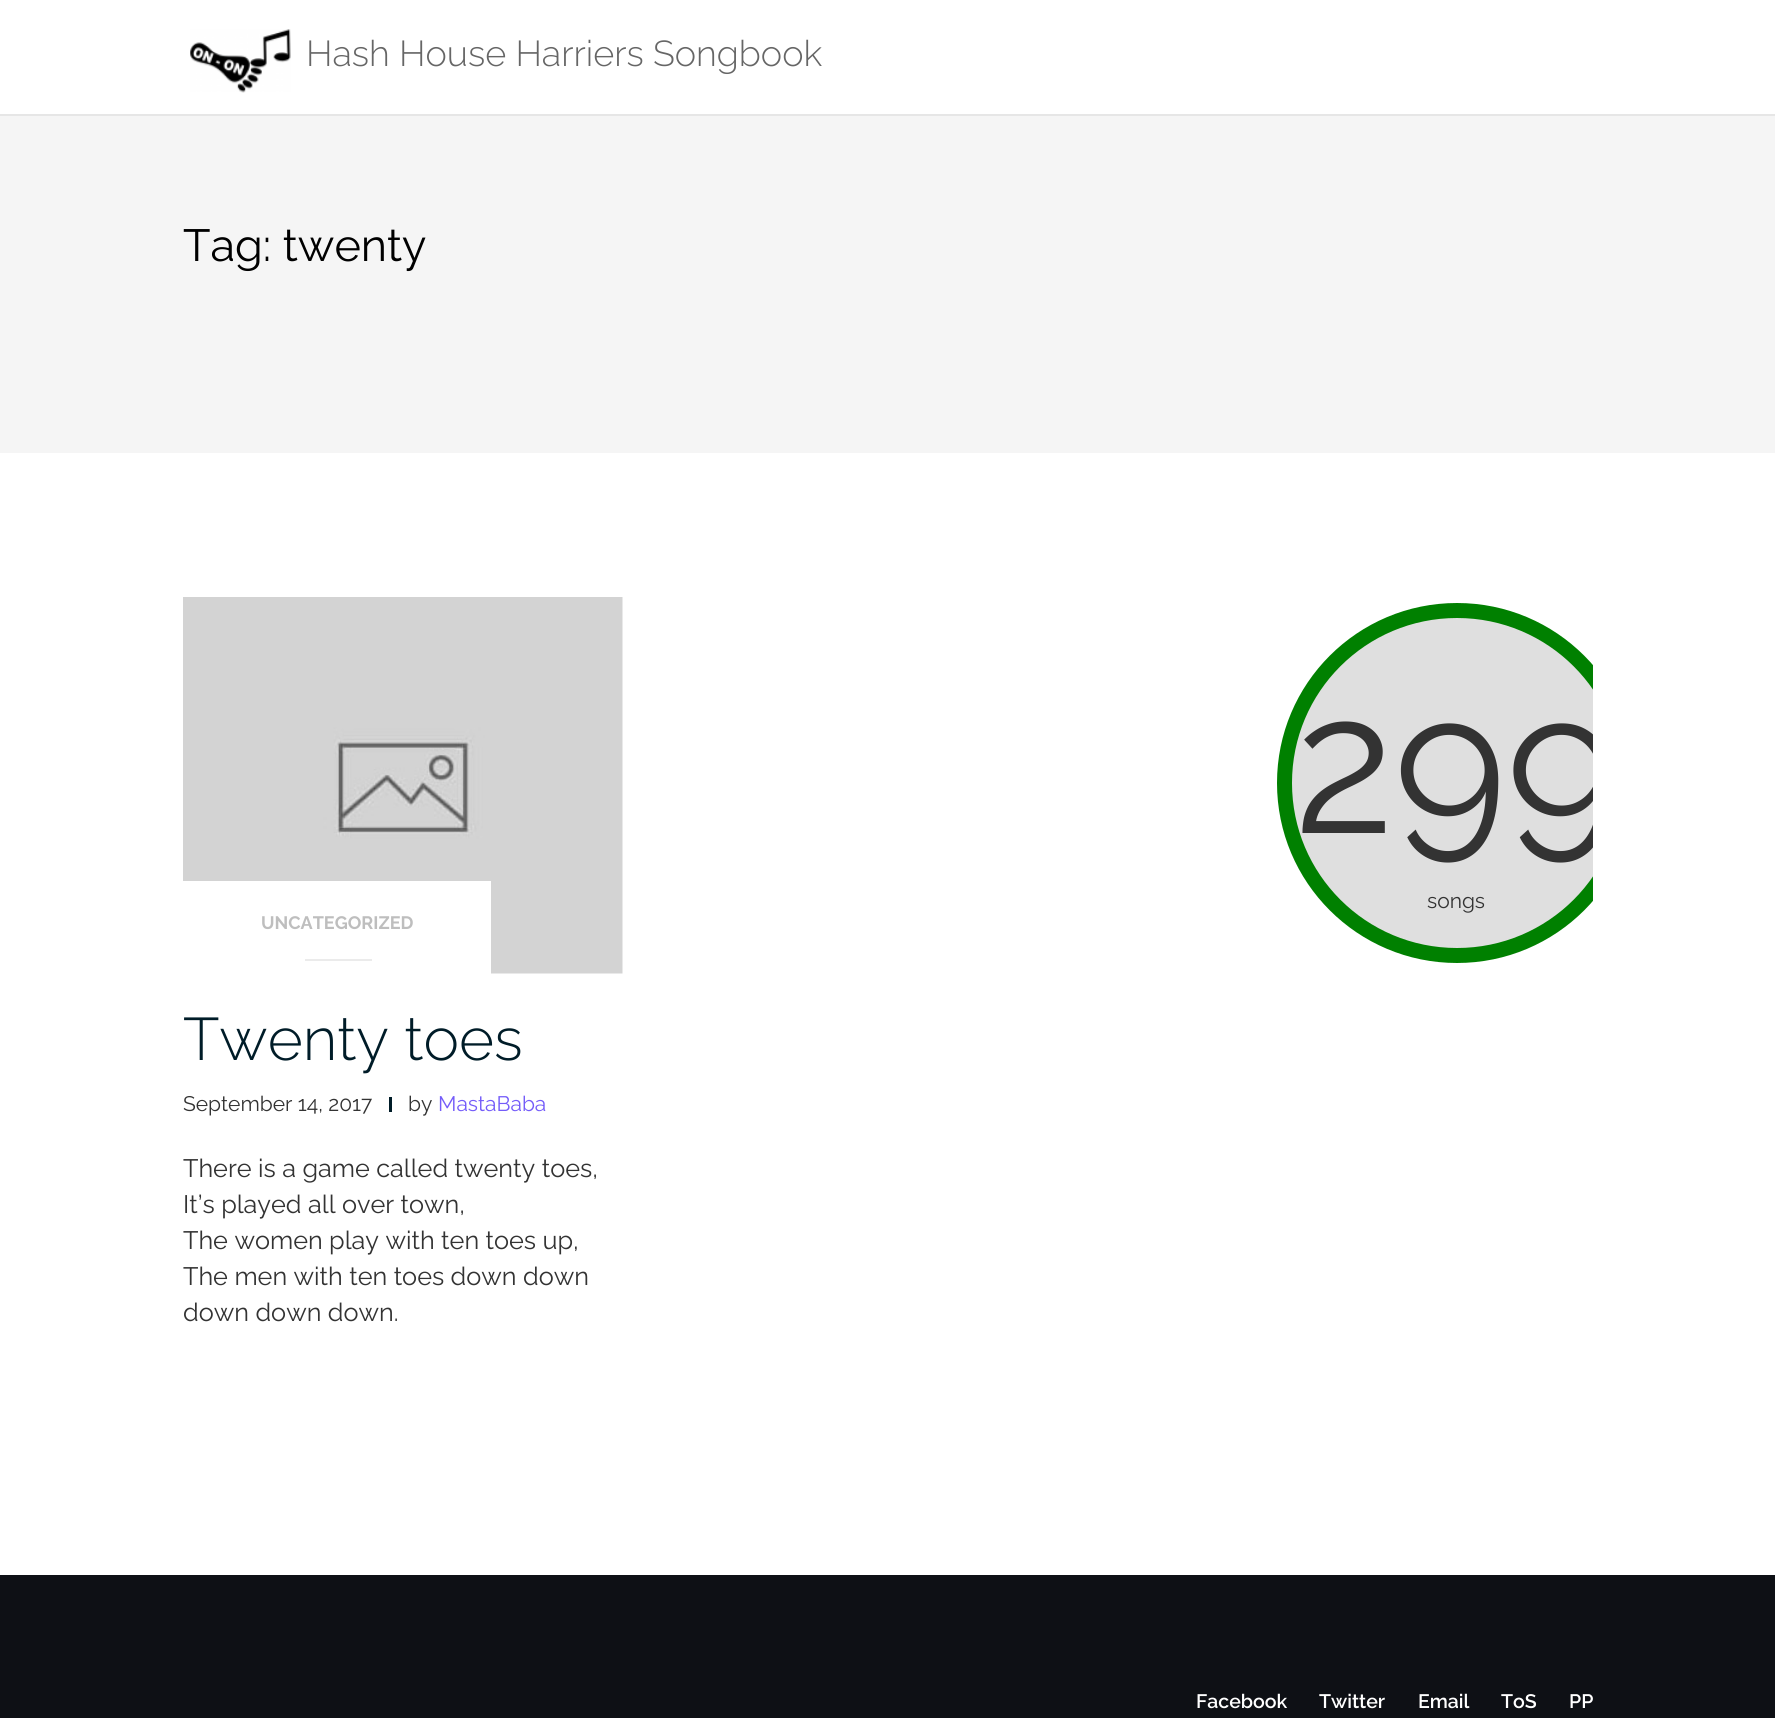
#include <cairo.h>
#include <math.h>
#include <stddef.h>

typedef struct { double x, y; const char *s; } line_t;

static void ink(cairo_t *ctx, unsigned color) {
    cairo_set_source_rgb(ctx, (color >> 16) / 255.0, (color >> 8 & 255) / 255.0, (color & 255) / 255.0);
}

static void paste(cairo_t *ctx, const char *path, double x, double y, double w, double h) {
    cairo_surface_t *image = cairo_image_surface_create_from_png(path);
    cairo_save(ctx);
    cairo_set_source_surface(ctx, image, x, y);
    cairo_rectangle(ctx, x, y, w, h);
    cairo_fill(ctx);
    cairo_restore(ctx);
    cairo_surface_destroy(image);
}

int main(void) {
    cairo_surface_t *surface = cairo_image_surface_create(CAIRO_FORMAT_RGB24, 1775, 1718);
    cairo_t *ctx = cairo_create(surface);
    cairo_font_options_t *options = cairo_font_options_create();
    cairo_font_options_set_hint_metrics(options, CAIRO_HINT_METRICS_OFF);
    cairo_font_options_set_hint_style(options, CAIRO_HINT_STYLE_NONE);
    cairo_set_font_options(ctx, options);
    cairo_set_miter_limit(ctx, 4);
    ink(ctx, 0xFFFFFF);
    cairo_paint(ctx);
    ink(ctx, 0xE6E6E6);
    cairo_rectangle(ctx, 0, 114, 1775, 2);
    cairo_fill(ctx);
    paste(ctx, "media/1.png", 190, 29, 101, 64);
    cairo_select_font_face(ctx, "Raleway Light", CAIRO_FONT_SLANT_NORMAL, CAIRO_FONT_WEIGHT_NORMAL);
    cairo_set_font_size(ctx, 36);
    ink(ctx, 0x666666);
    cairo_move_to(ctx, 306, 66);
    cairo_show_text(ctx, "Hash House Harriers Songbook");
    ink(ctx, 0xF5F5F5);
    cairo_rectangle(ctx, 0, 116, 1775, 337);
    cairo_fill(ctx);
    cairo_select_font_face(ctx, "Raleway", CAIRO_FONT_SLANT_NORMAL, CAIRO_FONT_WEIGHT_NORMAL);
    cairo_set_font_size(ctx, 45);
    ink(ctx, 0x000000);
    cairo_move_to(ctx, 183, 261);
    cairo_show_text(ctx, "Tag: twenty");
    cairo_save(ctx);
    cairo_rectangle(ctx, 1154, 597, 439, 372);
    cairo_clip(ctx);
    ink(ctx, 0xDFDFDF);
    cairo_arc(ctx, 1457, 783, 172.5, 0, 2 * M_PI);
    cairo_fill_preserve(ctx);
    ink(ctx, 0x008000);
    cairo_set_line_width(ctx, 15);
    cairo_stroke(ctx);
    cairo_set_font_size(ctx, 192);
    ink(ctx, 0x333333);
    cairo_move_to(ctx, 1294, 833);
    cairo_show_text(ctx, "299");
    cairo_restore(ctx);
    cairo_set_font_size(ctx, 21);
    ink(ctx, 0x333333);
    cairo_move_to(ctx, 1427, 908);
    cairo_show_text(ctx, "songs");
    paste(ctx, "media/2.png", 183, 597, 440, 377);
    ink(ctx, 0xFFFFFF);
    cairo_rectangle(ctx, 183, 881, 308, 93);
    cairo_fill(ctx);
    cairo_select_font_face(ctx, "Raleway", CAIRO_FONT_SLANT_NORMAL, CAIRO_FONT_WEIGHT_BOLD);
    cairo_set_font_size(ctx, 18);
    ink(ctx, 0xBEBEBE);
    cairo_move_to(ctx, 261, 929);
    cairo_show_text(ctx, "UNCATEGORIZED");
    ink(ctx, 0xEBEBEB);
    cairo_rectangle(ctx, 305, 959, 67, 2);
    cairo_fill(ctx);
    cairo_select_font_face(ctx, "Raleway Light", CAIRO_FONT_SLANT_NORMAL, CAIRO_FONT_WEIGHT_NORMAL);
    cairo_set_font_size(ctx, 60);
    ink(ctx, 0x001C28);
    cairo_move_to(ctx, 183, 1060);
    cairo_show_text(ctx, "Twenty toes");
    cairo_select_font_face(ctx, "Raleway", CAIRO_FONT_SLANT_NORMAL, CAIRO_FONT_WEIGHT_NORMAL);
    cairo_set_font_size(ctx, 21);
    ink(ctx, 0x333333);
    cairo_move_to(ctx, 183, 1111);
    cairo_show_text(ctx, "September 14, 2017");
    ink(ctx, 0x001C28);
    cairo_rectangle(ctx, 389, 1097, 3, 15);
    cairo_fill(ctx);
    ink(ctx, 0x333333);
    cairo_move_to(ctx, 408, 1111);
    cairo_show_text(ctx, "by");
    ink(ctx, 0x745CF9);
    cairo_move_to(ctx, 438, 1111);
    cairo_show_text(ctx, "MastaBaba");
    cairo_set_font_size(ctx, 25.25);
    ink(ctx, 0x333333);
    {
        static const line_t items[] = {
            {183, 1177, "There is a game called twenty toes,"},
            {183, 1213, "It’s played all over town,"},
            {183, 1249, "The women play with ten toes up,"},
            {183, 1285, "The men with ten toes down down"},
            {183, 1321, "down down down."},
        };
        for (size_t i = 0; i < sizeof items / sizeof *items; i++) {
            cairo_move_to(ctx, items[i].x, items[i].y);
            cairo_show_text(ctx, items[i].s);
        }
    }
    ink(ctx, 0x0E1015);
    cairo_rectangle(ctx, 0, 1575, 1775, 143);
    cairo_fill(ctx);
    cairo_select_font_face(ctx, "Raleway SemiBold", CAIRO_FONT_SLANT_NORMAL, CAIRO_FONT_WEIGHT_NORMAL);
    cairo_set_font_size(ctx, 19.5);
    ink(ctx, 0xFFFFFF);
    {
        static const line_t items[] = {
            {1196, 1708, "Facebook"},
            {1319, 1708, "Twitter"},
            {1418, 1708, "Email"},
            {1501, 1708, "ToS"},
            {1569, 1708, "PP"},
        };
        for (size_t i = 0; i < sizeof items / sizeof *items; i++) {
            cairo_move_to(ctx, items[i].x, items[i].y);
            cairo_show_text(ctx, items[i].s);
        }
    }
    cairo_surface_write_to_png(surface, "image.png");
    cairo_font_options_destroy(options);
    cairo_destroy(ctx);
    cairo_surface_destroy(surface);
    return 0;
}
